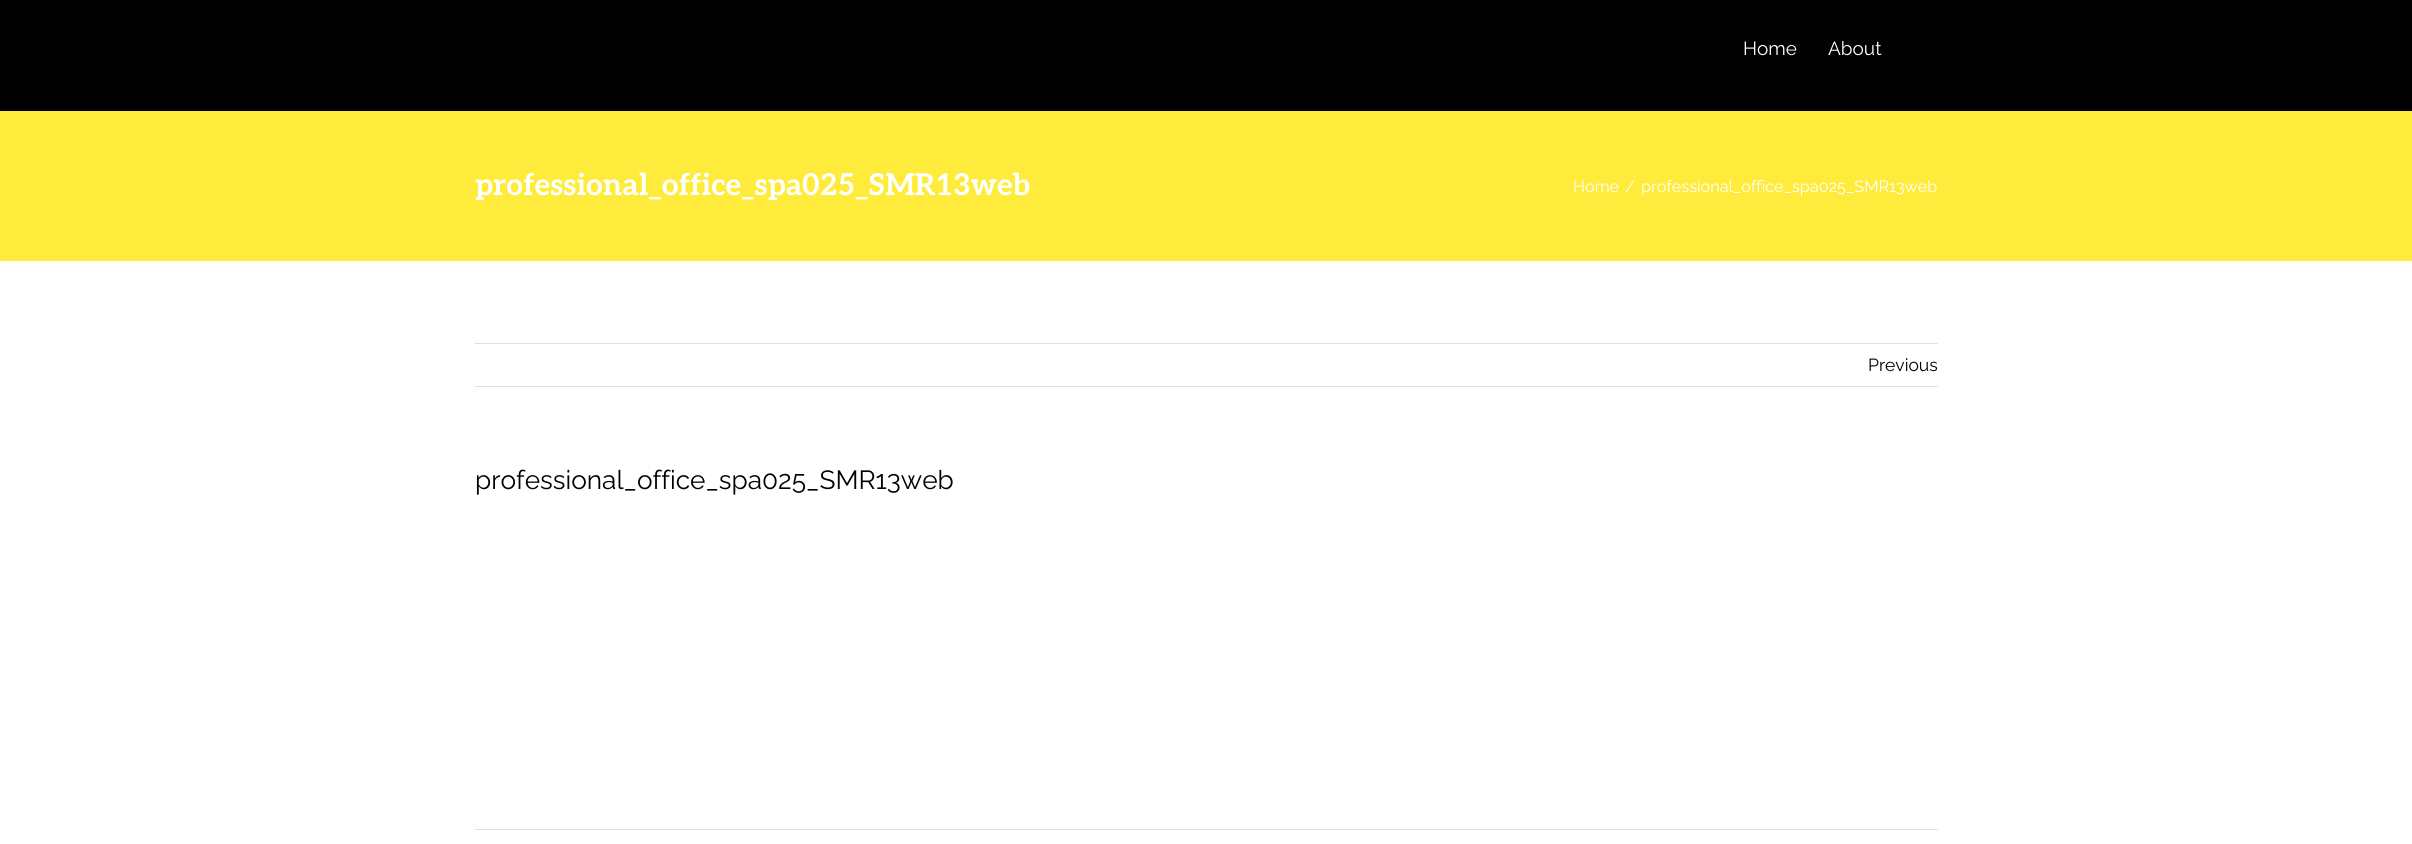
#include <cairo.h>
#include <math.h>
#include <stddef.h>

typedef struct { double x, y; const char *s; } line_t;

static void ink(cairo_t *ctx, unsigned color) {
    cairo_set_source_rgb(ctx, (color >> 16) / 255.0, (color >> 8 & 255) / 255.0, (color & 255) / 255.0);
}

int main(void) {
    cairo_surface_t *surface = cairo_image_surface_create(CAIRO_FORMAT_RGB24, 2412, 844);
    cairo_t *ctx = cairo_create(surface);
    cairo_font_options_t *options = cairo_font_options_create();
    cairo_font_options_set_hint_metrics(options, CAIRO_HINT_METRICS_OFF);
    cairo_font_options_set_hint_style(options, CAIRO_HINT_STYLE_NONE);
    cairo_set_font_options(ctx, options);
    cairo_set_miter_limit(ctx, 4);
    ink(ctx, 0xFFFFFF);
    cairo_paint(ctx);
    ink(ctx, 0x000000);
    cairo_rectangle(ctx, 0, 0, 2412, 111);
    cairo_fill(ctx);
    cairo_select_font_face(ctx, "Raleway Thin", CAIRO_FONT_SLANT_NORMAL, CAIRO_FONT_WEIGHT_NORMAL);
    cairo_set_font_size(ctx, 19);
    ink(ctx, 0xFFFFFF);
    cairo_move_to(ctx, 1743, 55);
    cairo_show_text(ctx, "Home");
    cairo_move_to(ctx, 1828, 55);
    cairo_show_text(ctx, "About");
    ink(ctx, 0xFFEB3B);
    cairo_rectangle(ctx, 0, 111, 2412, 150);
    cairo_fill(ctx);
    cairo_select_font_face(ctx, "Aleo", CAIRO_FONT_SLANT_NORMAL, CAIRO_FONT_WEIGHT_BOLD);
    cairo_set_font_size(ctx, 30);
    ink(ctx, 0xFFFFFF);
    cairo_move_to(ctx, 475, 195);
    cairo_show_text(ctx, "professional_office_spa025_SMR13web");
    cairo_select_font_face(ctx, "Raleway Thin", CAIRO_FONT_SLANT_NORMAL, CAIRO_FONT_WEIGHT_NORMAL);
    cairo_set_font_size(ctx, 16.25);
    {
        static const line_t items[] = {
            {1573, 192, "Home"},
            {1625, 192, "/"},
            {1641, 192, "professional_office_spa025_SMR13web"},
        };
        for (size_t i = 0; i < sizeof items / sizeof *items; i++) {
            cairo_move_to(ctx, items[i].x, items[i].y);
            cairo_show_text(ctx, items[i].s);
        }
    }
    ink(ctx, 0xE0DEDE);
    cairo_rectangle(ctx, 475, 343, 1463, 1);
    cairo_fill(ctx);
    cairo_rectangle(ctx, 475, 386, 1463, 1);
    cairo_fill(ctx);
    cairo_set_font_size(ctx, 17.5);
    ink(ctx, 0x000000);
    cairo_move_to(ctx, 1868, 371);
    cairo_show_text(ctx, "Previous");
    cairo_set_font_size(ctx, 26.25);
    cairo_move_to(ctx, 475, 489);
    cairo_show_text(ctx, "professional_office_spa025_SMR13web");
    ink(ctx, 0xE0DEDE);
    cairo_rectangle(ctx, 475, 829, 1463, 1);
    cairo_fill(ctx);
    cairo_surface_write_to_png(surface, "image.png");
    cairo_font_options_destroy(options);
    cairo_destroy(ctx);
    cairo_surface_destroy(surface);
    return 0;
}
